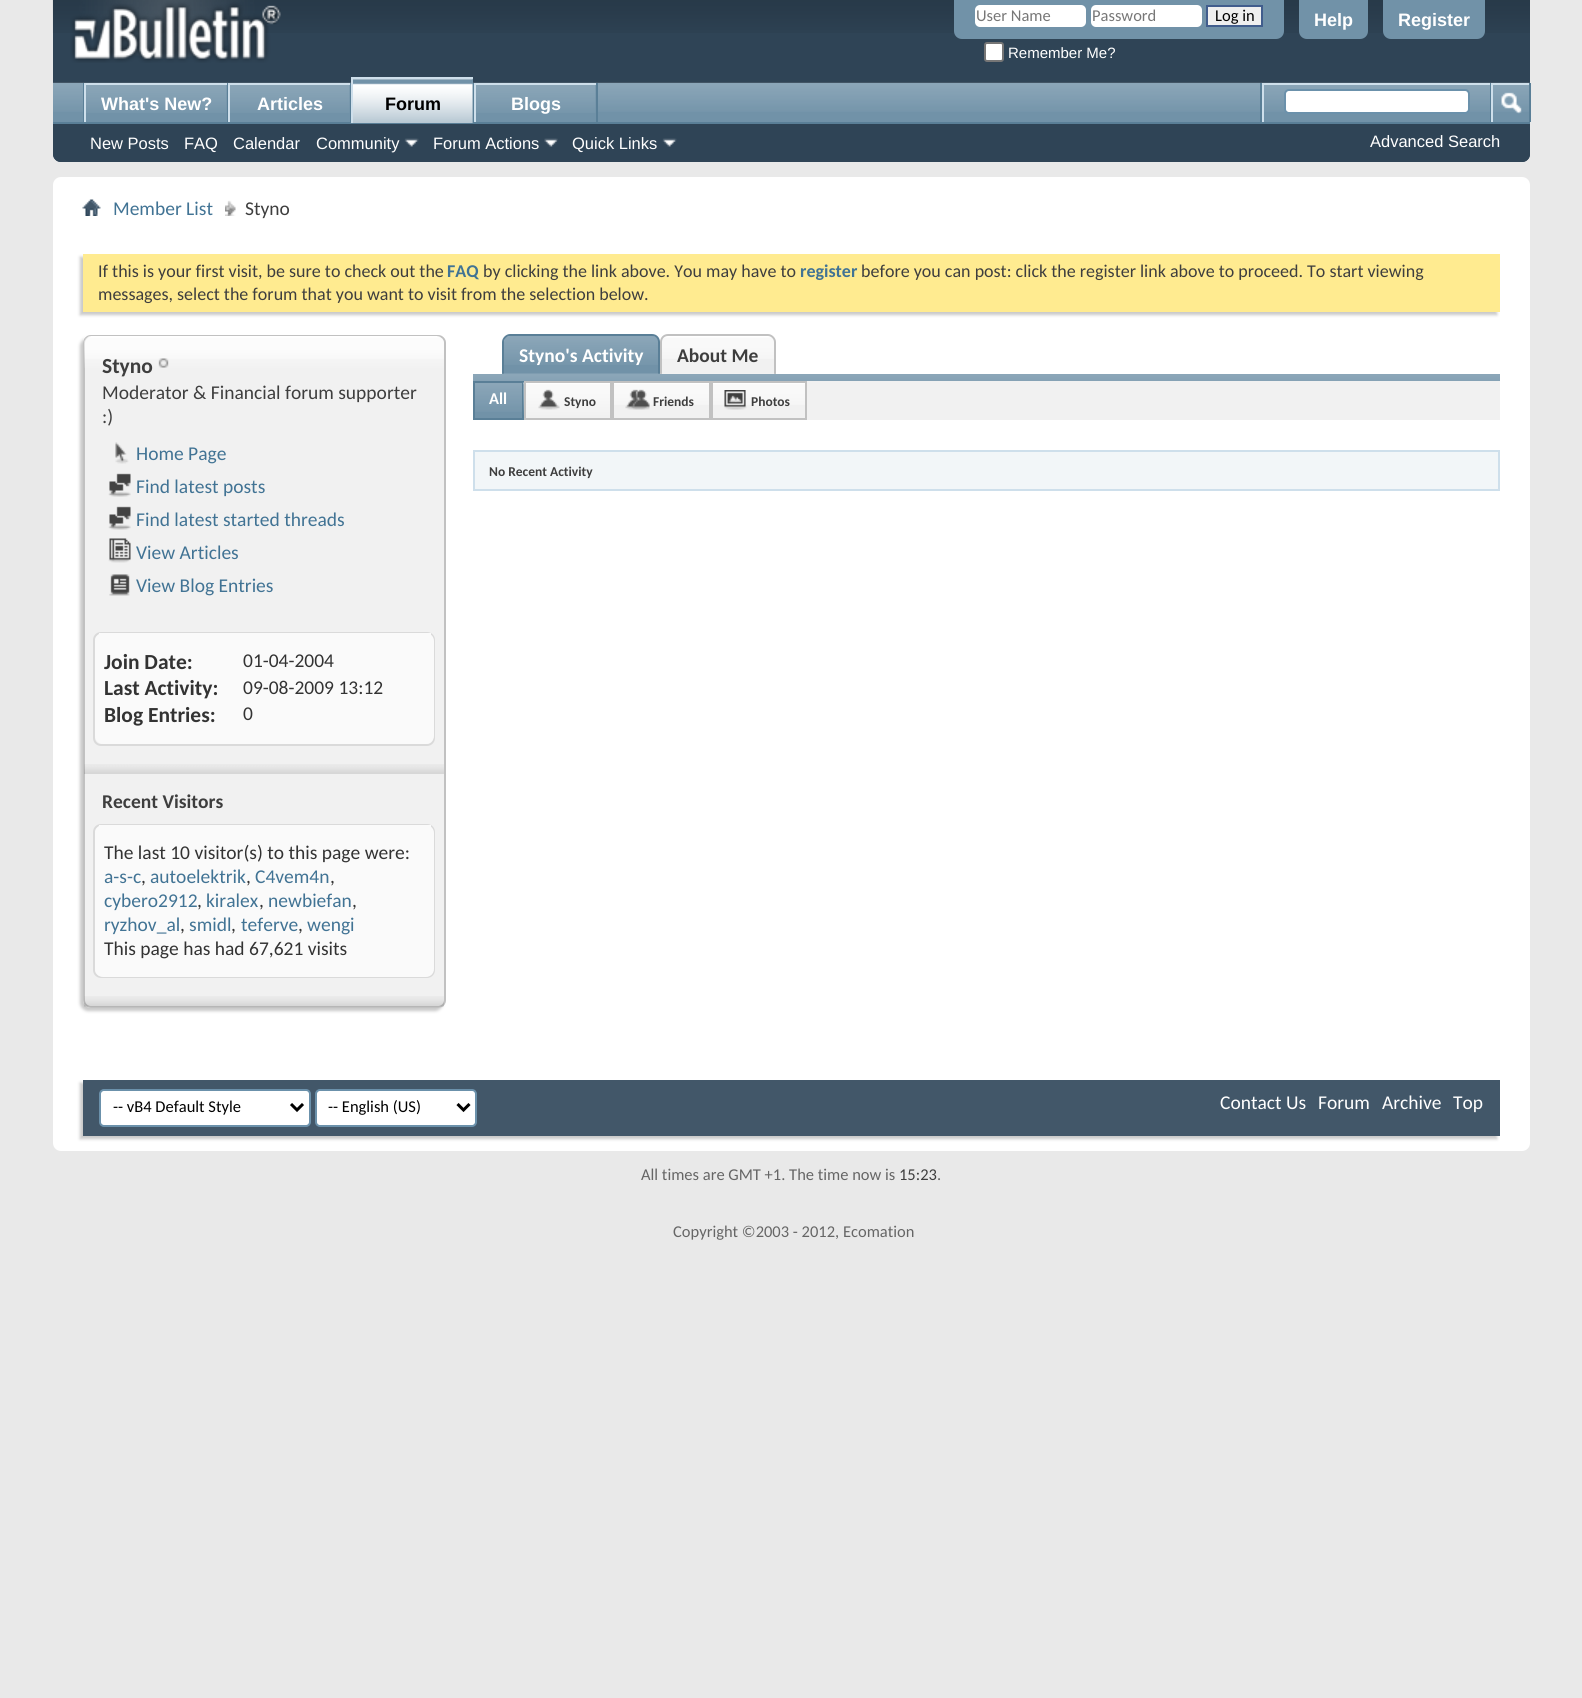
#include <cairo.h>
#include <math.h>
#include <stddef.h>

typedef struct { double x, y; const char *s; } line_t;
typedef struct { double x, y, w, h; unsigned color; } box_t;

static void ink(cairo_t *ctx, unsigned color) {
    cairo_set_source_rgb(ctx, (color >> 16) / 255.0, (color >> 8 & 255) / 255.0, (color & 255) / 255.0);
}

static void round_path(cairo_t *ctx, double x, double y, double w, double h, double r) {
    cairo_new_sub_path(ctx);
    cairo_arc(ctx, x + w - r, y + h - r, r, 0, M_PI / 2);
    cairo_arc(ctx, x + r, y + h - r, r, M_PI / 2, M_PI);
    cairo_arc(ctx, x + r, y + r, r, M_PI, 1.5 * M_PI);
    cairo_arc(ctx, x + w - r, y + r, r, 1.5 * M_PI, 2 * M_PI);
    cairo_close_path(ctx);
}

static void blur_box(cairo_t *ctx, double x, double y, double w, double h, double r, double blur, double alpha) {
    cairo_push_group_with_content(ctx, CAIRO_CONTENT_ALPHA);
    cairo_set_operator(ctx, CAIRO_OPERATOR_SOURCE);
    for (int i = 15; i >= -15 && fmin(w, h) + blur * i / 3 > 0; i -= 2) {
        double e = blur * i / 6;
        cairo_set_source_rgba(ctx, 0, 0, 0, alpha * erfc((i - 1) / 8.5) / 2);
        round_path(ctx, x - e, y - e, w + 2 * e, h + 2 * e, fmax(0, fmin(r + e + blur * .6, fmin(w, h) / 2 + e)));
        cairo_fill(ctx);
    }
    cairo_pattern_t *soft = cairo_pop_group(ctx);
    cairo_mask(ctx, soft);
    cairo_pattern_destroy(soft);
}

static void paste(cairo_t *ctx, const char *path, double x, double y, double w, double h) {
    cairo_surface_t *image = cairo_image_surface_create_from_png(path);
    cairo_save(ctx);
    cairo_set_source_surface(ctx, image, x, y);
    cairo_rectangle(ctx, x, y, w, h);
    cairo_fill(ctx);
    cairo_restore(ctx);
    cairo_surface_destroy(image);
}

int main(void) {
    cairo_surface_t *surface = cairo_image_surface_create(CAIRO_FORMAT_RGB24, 1582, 1698);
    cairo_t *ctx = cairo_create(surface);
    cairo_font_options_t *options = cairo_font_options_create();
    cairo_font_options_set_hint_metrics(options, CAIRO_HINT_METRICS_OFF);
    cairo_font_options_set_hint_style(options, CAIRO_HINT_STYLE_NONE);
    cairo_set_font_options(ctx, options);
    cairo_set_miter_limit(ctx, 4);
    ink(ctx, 0xE9E9E9);
    cairo_paint(ctx);
    ink(ctx, 0x2F4456);
    cairo_new_path(ctx);
    cairo_move_to(ctx, 53, 0);
    cairo_line_to(ctx, 1530, 0);
    cairo_line_to(ctx, 1530, 154);
    cairo_curve_to(ctx, 1530, 158.5, 1526.5, 162, 1522, 162);
    cairo_line_to(ctx, 61, 162);
    cairo_curve_to(ctx, 56.5, 162, 53, 158.5, 53, 154);
    cairo_close_path(ctx);
    cairo_fill(ctx);
    paste(ctx, "media/1.png", 52, 0, 1478, 33);
    paste(ctx, "media/2.png", 70, 0, 211, 63);
    ink(ctx, 0x7192A8);
    cairo_new_path(ctx);
    cairo_move_to(ctx, 954, 0);
    cairo_line_to(ctx, 1284, 0);
    cairo_line_to(ctx, 1284, 31);
    cairo_curve_to(ctx, 1284, 35.5, 1280.5, 39, 1276, 39);
    cairo_line_to(ctx, 962, 39);
    cairo_curve_to(ctx, 957.5, 39, 954, 35.5, 954, 31);
    cairo_close_path(ctx);
    cairo_fill(ctx);
    ink(ctx, 0xFFFFFF);
    round_path(ctx, 975, 5, 111, 22, 5);
    cairo_fill(ctx);
    cairo_select_font_face(ctx, "Carlito", CAIRO_FONT_SLANT_NORMAL, CAIRO_FONT_WEIGHT_NORMAL);
    cairo_set_font_size(ctx, 16.5);
    ink(ctx, 0x777777);
    cairo_move_to(ctx, 976, 21);
    cairo_show_text(ctx, "User Name");
    ink(ctx, 0xFFFFFF);
    round_path(ctx, 1091, 5, 111, 22, 5);
    cairo_fill(ctx);
    ink(ctx, 0x777777);
    cairo_move_to(ctx, 1092, 21);
    cairo_show_text(ctx, "Password");
    ink(ctx, 0xEFEFEF);
    cairo_rectangle(ctx, 1207, 6, 55, 20);
    cairo_fill_preserve(ctx);
    ink(ctx, 0x415D8D);
    cairo_stroke(ctx);
    ink(ctx, 0x000000);
    cairo_move_to(ctx, 1215, 21);
    cairo_show_text(ctx, "Log in");
    ink(ctx, 0xFFFFFF);
    round_path(ctx, 985, 43, 18, 18, 2);
    cairo_fill_preserve(ctx);
    ink(ctx, 0x767676);
    cairo_stroke(ctx);
    cairo_select_font_face(ctx, "Liberation Sans", CAIRO_FONT_SLANT_NORMAL, CAIRO_FONT_WEIGHT_NORMAL);
    cairo_set_font_size(ctx, 15);
    ink(ctx, 0xFFFFFF);
    cairo_move_to(ctx, 1008, 58);
    cairo_show_text(ctx, "Remember Me?");
    ink(ctx, 0x7192A8);
    cairo_new_path(ctx);
    cairo_move_to(ctx, 1299, 0);
    cairo_line_to(ctx, 1368, 0);
    cairo_line_to(ctx, 1368, 31);
    cairo_curve_to(ctx, 1368, 35.5, 1364.5, 39, 1360, 39);
    cairo_line_to(ctx, 1307, 39);
    cairo_curve_to(ctx, 1302.5, 39, 1299, 35.5, 1299, 31);
    cairo_close_path(ctx);
    cairo_fill(ctx);
    cairo_select_font_face(ctx, "Liberation Sans", CAIRO_FONT_SLANT_NORMAL, CAIRO_FONT_WEIGHT_BOLD);
    cairo_set_font_size(ctx, 18);
    ink(ctx, 0xFFFFFF);
    cairo_move_to(ctx, 1314, 26);
    cairo_show_text(ctx, "Help");
    ink(ctx, 0x7192A8);
    cairo_new_path(ctx);
    cairo_move_to(ctx, 1383, 0);
    cairo_line_to(ctx, 1485, 0);
    cairo_line_to(ctx, 1485, 31);
    cairo_curve_to(ctx, 1485, 35.5, 1481.5, 39, 1477, 39);
    cairo_line_to(ctx, 1391, 39);
    cairo_curve_to(ctx, 1386.5, 39, 1383, 35.5, 1383, 31);
    cairo_close_path(ctx);
    cairo_fill(ctx);
    ink(ctx, 0xFFFFFF);
    cairo_move_to(ctx, 1398, 26);
    cairo_show_text(ctx, "Register");
    ink(ctx, 0x2F4456);
    cairo_new_path(ctx);
    cairo_move_to(ctx, 53, 83);
    cairo_line_to(ctx, 1530, 83);
    cairo_line_to(ctx, 1530, 154);
    cairo_curve_to(ctx, 1530, 158.5, 1526.5, 162, 1522, 162);
    cairo_line_to(ctx, 61, 162);
    cairo_curve_to(ctx, 56.5, 162, 53, 158.5, 53, 154);
    cairo_close_path(ctx);
    cairo_fill(ctx);
    ink(ctx, 0x7192A8);
    cairo_rectangle(ctx, 53, 83, 1476, 39);
    cairo_fill(ctx);
    paste(ctx, "media/3.png", 53, 82, 1477, 30);
    {
        static const box_t items[] = {
            {227, 83, 1, 40, 0x5A7F97},
            {83, 83, 1, 40, 0x5A7F97},
            {86, 85, 141, 27, 0x7192A8},
        };
        for (size_t i = 0; i < sizeof items / sizeof *items; i++) {
            ink(ctx, items[i].color);
            cairo_rectangle(ctx, items[i].x, items[i].y, items[i].w, items[i].h);
            cairo_fill(ctx);
        }
    }
    paste(ctx, "media/4.png", 86, 85, 141, 28);
    ink(ctx, 0xCEDFEB);
    cairo_rectangle(ctx, 84, 83, 143, 2);
    cairo_fill(ctx);
    cairo_rectangle(ctx, 84, 83, 2, 40);
    cairo_fill(ctx);
    ink(ctx, 0xFFFFFF);
    cairo_move_to(ctx, 101, 110);
    cairo_show_text(ctx, "What's New?");
    ink(ctx, 0x5A7F97);
    cairo_rectangle(ctx, 350, 83, 1, 40);
    cairo_fill(ctx);
    ink(ctx, 0x7192A8);
    cairo_rectangle(ctx, 230, 85, 120, 27);
    cairo_fill(ctx);
    paste(ctx, "media/5.png", 230, 85, 120, 28);
    ink(ctx, 0xCEDFEB);
    cairo_rectangle(ctx, 228, 83, 122, 2);
    cairo_fill(ctx);
    cairo_rectangle(ctx, 228, 83, 2, 40);
    cairo_fill(ctx);
    ink(ctx, 0xFFFFFF);
    cairo_move_to(ctx, 257, 110);
    cairo_show_text(ctx, "Articles");
    {
        static const box_t items[] = {
            {473, 83, 1, 39, 0x5A7F97},
            {596, 83, 2, 40, 0x5A7F97},
            {474, 83, 122, 2, 0xCEDFEB},
            {474, 83, 2, 40, 0xCEDFEB},
            {53, 122, 1477, 2, 0x5A7F97},
            {353, 79, 120, 44, 0x7192A8},
        };
        for (size_t i = 0; i < sizeof items / sizeof *items; i++) {
            ink(ctx, items[i].color);
            cairo_rectangle(ctx, items[i].x, items[i].y, items[i].w, items[i].h);
            cairo_fill(ctx);
        }
    }
    paste(ctx, "media/6.png", 353, 79, 120, 44);
    ink(ctx, 0xCEDFEB);
    cairo_rectangle(ctx, 351, 77, 122, 2);
    cairo_fill(ctx);
    cairo_rectangle(ctx, 351, 77, 2, 46);
    cairo_fill(ctx);
    ink(ctx, 0x000000);
    cairo_move_to(ctx, 385, 110);
    cairo_show_text(ctx, "Forum");
    ink(ctx, 0x7192A8);
    cairo_rectangle(ctx, 476, 85, 120, 27);
    cairo_fill(ctx);
    paste(ctx, "media/5.png", 476, 85, 120, 28);
    ink(ctx, 0xFFFFFF);
    cairo_move_to(ctx, 511, 110);
    cairo_show_text(ctx, "Blogs");
    cairo_select_font_face(ctx, "Liberation Sans", CAIRO_FONT_SLANT_NORMAL, CAIRO_FONT_WEIGHT_NORMAL);
    cairo_set_font_size(ctx, 16.5);
    {
        static const line_t items[] = {
            {90, 149, "New Posts"},
            {184, 149, "FAQ"},
            {233, 149, "Calendar"},
            {316, 149, "Community"},
        };
        for (size_t i = 0; i < sizeof items / sizeof *items; i++) {
            cairo_move_to(ctx, items[i].x, items[i].y);
            cairo_show_text(ctx, items[i].s);
        }
    }
    paste(ctx, "media/7.png", 404, 138, 15, 9);
    cairo_move_to(ctx, 433, 149);
    cairo_show_text(ctx, "Forum Actions");
    paste(ctx, "media/8.png", 544, 138, 14, 9);
    cairo_move_to(ctx, 572, 149);
    cairo_show_text(ctx, "Quick Links");
    paste(ctx, "media/9.png", 662, 138, 15, 9);
    {
        static const box_t items[] = {
            {1260, 83, 2, 39, 0x5A7F97},
            {1262, 83, 228, 2, 0xCEDFEB},
            {1262, 83, 2, 39, 0xCEDFEB},
        };
        for (size_t i = 0; i < sizeof items / sizeof *items; i++) {
            ink(ctx, items[i].color);
            cairo_rectangle(ctx, items[i].x, items[i].y, items[i].w, items[i].h);
            cairo_fill(ctx);
        }
    }
    ink(ctx, 0xFFFFFF);
    round_path(ctx, 1285, 90, 184, 23, 4);
    cairo_fill_preserve(ctx);
    ink(ctx, 0x6B91AB);
    cairo_stroke(ctx);
    {
        static const box_t items[] = {
            {1529, 83, 2, 39, 0x5A7F97},
            {1490, 83, 1, 39, 0x5A7F97},
            {1491, 83, 38, 2, 0xCEDFEB},
            {1491, 83, 2, 39, 0xCEDFEB},
        };
        for (size_t i = 0; i < sizeof items / sizeof *items; i++) {
            ink(ctx, items[i].color);
            cairo_rectangle(ctx, items[i].x, items[i].y, items[i].w, items[i].h);
            cairo_fill(ctx);
        }
    }
    paste(ctx, "media/10.png", 1501, 92, 21, 22);
    ink(ctx, 0xFFFFFF);
    cairo_move_to(ctx, 1370, 147);
    cairo_show_text(ctx, "Advanced Search");
    round_path(ctx, 53, 177, 1477, 974, 8);
    cairo_fill(ctx);
    paste(ctx, "media/11.png", 82, 199, 19, 17);
    paste(ctx, "media/12.png", 225, 200, 11, 16);
    cairo_select_font_face(ctx, "Carlito", CAIRO_FONT_SLANT_NORMAL, CAIRO_FONT_WEIGHT_NORMAL);
    cairo_set_font_size(ctx, 19.5);
    ink(ctx, 0x417394);
    cairo_move_to(ctx, 113, 215);
    cairo_show_text(ctx, "Member List");
    ink(ctx, 0x3E3E3E);
    cairo_move_to(ctx, 245, 215);
    cairo_show_text(ctx, "Styno");
    ink(ctx, 0xC8C8C8);
    blur_box(ctx, 80, 257, 1417, 58, 0, 1.5, 1);
    ink(ctx, 0xFFEB90);
    cairo_rectangle(ctx, 83, 254, 1417, 58);
    cairo_fill(ctx);
    cairo_set_font_size(ctx, 18);
    ink(ctx, 0x3E3E3E);
    cairo_move_to(ctx, 98, 277);
    cairo_show_text(ctx, "If this is your first visit, be sure to check out the");
    cairo_select_font_face(ctx, "Carlito", CAIRO_FONT_SLANT_NORMAL, CAIRO_FONT_WEIGHT_BOLD);
    ink(ctx, 0x417394);
    cairo_move_to(ctx, 447, 277);
    cairo_show_text(ctx, "FAQ");
    cairo_select_font_face(ctx, "Carlito", CAIRO_FONT_SLANT_NORMAL, CAIRO_FONT_WEIGHT_NORMAL);
    ink(ctx, 0x3E3E3E);
    cairo_move_to(ctx, 483, 277);
    cairo_show_text(ctx, "by clicking the link above. You may have to");
    cairo_select_font_face(ctx, "Carlito", CAIRO_FONT_SLANT_NORMAL, CAIRO_FONT_WEIGHT_BOLD);
    ink(ctx, 0x417394);
    cairo_move_to(ctx, 800, 277);
    cairo_show_text(ctx, "register");
    cairo_select_font_face(ctx, "Carlito", CAIRO_FONT_SLANT_NORMAL, CAIRO_FONT_WEIGHT_NORMAL);
    ink(ctx, 0x3E3E3E);
    cairo_move_to(ctx, 861, 277);
    cairo_show_text(ctx, "before you can post: click the register link above to proceed. To start viewing");
    cairo_move_to(ctx, 98, 300);
    cairo_show_text(ctx, "messages, select the forum that you want to visit from the selection below.");
    ink(ctx, 0xC8C8C8);
    blur_box(ctx, 80, 338, 363, 673, 8, 1.5, 1);
    ink(ctx, 0xF1F1F1);
    round_path(ctx, 83, 335, 363, 673, 8);
    cairo_fill(ctx);
    paste(ctx, "media/13.png", 83, 336, 362, 23);
    round_path(ctx, 84, 336, 361, 671, 7);
    ink(ctx, 0xC1C1C1);
    cairo_stroke(ctx);
    paste(ctx, "media/14.png", 84, 336, 360, 32);
    cairo_select_font_face(ctx, "Carlito", CAIRO_FONT_SLANT_NORMAL, CAIRO_FONT_WEIGHT_BOLD);
    cairo_set_font_size(ctx, 21.5);
    ink(ctx, 0x3E3E3E);
    cairo_move_to(ctx, 102, 373);
    cairo_show_text(ctx, "Styno");
    paste(ctx, "media/15.png", 158, 358, 11, 10);
    cairo_select_font_face(ctx, "Carlito", CAIRO_FONT_SLANT_NORMAL, CAIRO_FONT_WEIGHT_NORMAL);
    cairo_set_font_size(ctx, 19.5);
    cairo_move_to(ctx, 102, 399);
    cairo_show_text(ctx, "Moderator & Financial forum supporter");
    cairo_move_to(ctx, 102, 423);
    cairo_show_text(ctx, ":)");
    paste(ctx, "media/16.png", 115, 442, 14, 22);
    ink(ctx, 0x417394);
    cairo_move_to(ctx, 136, 460);
    cairo_show_text(ctx, "Home Page");
    paste(ctx, "media/17.png", 108, 473, 23, 24);
    cairo_move_to(ctx, 136, 493);
    cairo_show_text(ctx, "Find latest posts");
    paste(ctx, "media/17.png", 108, 506, 23, 24);
    cairo_move_to(ctx, 136, 526);
    cairo_show_text(ctx, "Find latest started threads");
    paste(ctx, "media/18.png", 108, 538, 23, 25);
    cairo_move_to(ctx, 136, 559);
    cairo_show_text(ctx, "View Articles");
    paste(ctx, "media/19.png", 109, 574, 21, 22);
    cairo_move_to(ctx, 136, 592);
    cairo_show_text(ctx, "View Blog Entries");
    round_path(ctx, 94, 633, 340, 112, 7);
    ink(ctx, 0xDADADA);
    cairo_stroke(ctx);
    ink(ctx, 0xFAFAFA);
    round_path(ctx, 95, 633, 339, 111, 8);
    cairo_fill(ctx);
    cairo_rectangle(ctx, 99, 633, 332, 2);
    cairo_fill(ctx);
    cairo_select_font_face(ctx, "Carlito", CAIRO_FONT_SLANT_NORMAL, CAIRO_FONT_WEIGHT_BOLD);
    cairo_set_font_size(ctx, 21.5);
    ink(ctx, 0x333333);
    cairo_move_to(ctx, 104, 669);
    cairo_show_text(ctx, "Join Date:");
    cairo_select_font_face(ctx, "Carlito", CAIRO_FONT_SLANT_NORMAL, CAIRO_FONT_WEIGHT_NORMAL);
    cairo_set_font_size(ctx, 19.5);
    cairo_move_to(ctx, 243, 667);
    cairo_show_text(ctx, "01-04-2004");
    cairo_select_font_face(ctx, "Carlito", CAIRO_FONT_SLANT_NORMAL, CAIRO_FONT_WEIGHT_BOLD);
    cairo_set_font_size(ctx, 21.5);
    cairo_move_to(ctx, 104, 695);
    cairo_show_text(ctx, "Last Activity:");
    cairo_select_font_face(ctx, "Carlito", CAIRO_FONT_SLANT_NORMAL, CAIRO_FONT_WEIGHT_NORMAL);
    cairo_set_font_size(ctx, 19.5);
    cairo_move_to(ctx, 243, 694);
    cairo_show_text(ctx, "09-08-2009 13:12");
    cairo_select_font_face(ctx, "Carlito", CAIRO_FONT_SLANT_NORMAL, CAIRO_FONT_WEIGHT_BOLD);
    cairo_set_font_size(ctx, 21.5);
    cairo_move_to(ctx, 104, 722);
    cairo_show_text(ctx, "Blog Entries:");
    cairo_select_font_face(ctx, "Carlito", CAIRO_FONT_SLANT_NORMAL, CAIRO_FONT_WEIGHT_NORMAL);
    cairo_set_font_size(ctx, 19.5);
    cairo_move_to(ctx, 243, 720);
    cairo_show_text(ctx, "0");
    paste(ctx, "media/20.png", 84, 764, 360, 10);
    cairo_select_font_face(ctx, "Carlito", CAIRO_FONT_SLANT_NORMAL, CAIRO_FONT_WEIGHT_BOLD);
    ink(ctx, 0x3E3E3E);
    cairo_move_to(ctx, 102, 808);
    cairo_show_text(ctx, "Recent Visitors");
    round_path(ctx, 94, 825, 340, 152, 7);
    ink(ctx, 0xDADADA);
    cairo_stroke(ctx);
    ink(ctx, 0xFAFAFA);
    round_path(ctx, 95, 825, 339, 152, 8);
    cairo_fill(ctx);
    cairo_rectangle(ctx, 99, 825, 332, 2);
    cairo_fill(ctx);
    cairo_select_font_face(ctx, "Carlito", CAIRO_FONT_SLANT_NORMAL, CAIRO_FONT_WEIGHT_NORMAL);
    ink(ctx, 0x333333);
    cairo_move_to(ctx, 104, 859);
    cairo_show_text(ctx, "The last 10 visitor(s) to this page were:");
    ink(ctx, 0x417394);
    cairo_move_to(ctx, 104, 883);
    cairo_show_text(ctx, "a-s-c");
    ink(ctx, 0x333333);
    cairo_move_to(ctx, 141, 883);
    cairo_show_text(ctx, ",");
    ink(ctx, 0x417394);
    cairo_move_to(ctx, 150, 883);
    cairo_show_text(ctx, "autoelektrik");
    ink(ctx, 0x333333);
    cairo_move_to(ctx, 246, 883);
    cairo_show_text(ctx, ",");
    ink(ctx, 0x417394);
    cairo_move_to(ctx, 255, 883);
    cairo_show_text(ctx, "C4vem4n");
    ink(ctx, 0x333333);
    cairo_move_to(ctx, 330, 883);
    cairo_show_text(ctx, ",");
    ink(ctx, 0x417394);
    cairo_move_to(ctx, 104, 907);
    cairo_show_text(ctx, "cybero2912");
    ink(ctx, 0x333333);
    cairo_move_to(ctx, 197, 907);
    cairo_show_text(ctx, ",");
    ink(ctx, 0x417394);
    cairo_move_to(ctx, 206, 907);
    cairo_show_text(ctx, "kiralex");
    ink(ctx, 0x333333);
    cairo_move_to(ctx, 259, 907);
    cairo_show_text(ctx, ",");
    ink(ctx, 0x417394);
    cairo_move_to(ctx, 268, 907);
    cairo_show_text(ctx, "newbiefan");
    ink(ctx, 0x333333);
    cairo_move_to(ctx, 352, 907);
    cairo_show_text(ctx, ",");
    ink(ctx, 0x417394);
    cairo_move_to(ctx, 104, 931);
    cairo_show_text(ctx, "ryzhov_al");
    ink(ctx, 0x333333);
    cairo_move_to(ctx, 180, 931);
    cairo_show_text(ctx, ",");
    ink(ctx, 0x417394);
    cairo_move_to(ctx, 189, 931);
    cairo_show_text(ctx, "smidl");
    ink(ctx, 0x333333);
    cairo_move_to(ctx, 231, 931);
    cairo_show_text(ctx, ",");
    ink(ctx, 0x417394);
    cairo_move_to(ctx, 241, 931);
    cairo_show_text(ctx, "teferve");
    ink(ctx, 0x333333);
    cairo_move_to(ctx, 298, 931);
    cairo_show_text(ctx, ",");
    ink(ctx, 0x417394);
    cairo_move_to(ctx, 307, 931);
    cairo_show_text(ctx, "wengi");
    ink(ctx, 0x333333);
    cairo_move_to(ctx, 104, 955);
    cairo_show_text(ctx, "This page has had 67,621 visits");
    paste(ctx, "media/21.png", 84, 996, 360, 11);
    ink(ctx, 0x7192A8);
    cairo_new_path(ctx);
    cairo_move_to(ctx, 510, 336);
    cairo_line_to(ctx, 653, 336);
    cairo_curve_to(ctx, 656.5, 336, 659, 338.5, 659, 342);
    cairo_line_to(ctx, 659, 374);
    cairo_line_to(ctx, 504, 374);
    cairo_line_to(ctx, 504, 342);
    cairo_curve_to(ctx, 504, 338.5, 506.5, 336, 510, 336);
    cairo_close_path(ctx);
    cairo_fill(ctx);
    paste(ctx, "media/22.png", 504, 336, 155, 29);
    ink(ctx, 0x5A7F97);
    cairo_set_fill_rule(ctx, CAIRO_FILL_RULE_EVEN_ODD);
    cairo_new_path(ctx);
    cairo_move_to(ctx, 510, 334);
    cairo_line_to(ctx, 652, 334);
    cairo_curve_to(ctx, 657, 334, 660, 338, 660, 342);
    cairo_line_to(ctx, 660, 374);
    cairo_line_to(ctx, 502, 374);
    cairo_line_to(ctx, 502, 342);
    cairo_curve_to(ctx, 502, 338, 506, 334, 510, 334);
    cairo_close_path(ctx);
    cairo_move_to(ctx, 510, 336);
    cairo_line_to(ctx, 652, 336);
    cairo_curve_to(ctx, 656, 336, 658, 339, 658, 342);
    cairo_line_to(ctx, 658, 374);
    cairo_line_to(ctx, 504, 374);
    cairo_line_to(ctx, 504, 342);
    cairo_curve_to(ctx, 504, 339, 507, 336, 510, 336);
    cairo_close_path(ctx);
    cairo_fill(ctx);
    cairo_select_font_face(ctx, "Carlito", CAIRO_FONT_SLANT_NORMAL, CAIRO_FONT_WEIGHT_BOLD);
    ink(ctx, 0xFFFFFF);
    cairo_move_to(ctx, 519, 362);
    cairo_show_text(ctx, "Styno's Activity");
    ink(ctx, 0xF1F1F1);
    cairo_new_path(ctx);
    cairo_move_to(ctx, 668, 336);
    cairo_line_to(ctx, 768, 336);
    cairo_curve_to(ctx, 771.5, 336, 774, 338.5, 774, 342);
    cairo_line_to(ctx, 774, 374);
    cairo_line_to(ctx, 662, 374);
    cairo_line_to(ctx, 662, 342);
    cairo_curve_to(ctx, 662, 338.5, 664.5, 336, 668, 336);
    cairo_close_path(ctx);
    cairo_fill(ctx);
    paste(ctx, "media/23.png", 662, 336, 112, 23);
    ink(ctx, 0xC1C1C1);
    cairo_new_path(ctx);
    cairo_move_to(ctx, 668, 334);
    cairo_line_to(ctx, 768, 334);
    cairo_curve_to(ctx, 772, 334, 776, 338, 776, 342);
    cairo_line_to(ctx, 776, 374);
    cairo_line_to(ctx, 660, 374);
    cairo_line_to(ctx, 660, 342);
    cairo_curve_to(ctx, 660, 338, 663, 334, 668, 334);
    cairo_close_path(ctx);
    cairo_move_to(ctx, 668, 336);
    cairo_line_to(ctx, 768, 336);
    cairo_curve_to(ctx, 771, 336, 774, 339, 774, 342);
    cairo_line_to(ctx, 774, 374);
    cairo_line_to(ctx, 662, 374);
    cairo_line_to(ctx, 662, 342);
    cairo_curve_to(ctx, 662, 339, 664, 336, 668, 336);
    cairo_close_path(ctx);
    cairo_fill(ctx);
    ink(ctx, 0x3E3E3E);
    cairo_move_to(ctx, 677, 362);
    cairo_show_text(ctx, "About Me");
    ink(ctx, 0x7192A8);
    cairo_rectangle(ctx, 473, 374, 1027, 7);
    cairo_fill(ctx);
    paste(ctx, "media/24.png", 473, 373, 1027, 8);
    ink(ctx, 0xF1F1F1);
    cairo_rectangle(ctx, 526, 381, 974, 39);
    cairo_fill(ctx);
    ink(ctx, 0x7192A8);
    cairo_rectangle(ctx, 475, 383, 47, 35);
    cairo_fill(ctx);
    paste(ctx, "media/25.png", 475, 383, 47, 29);
    cairo_rectangle(ctx, 474, 382, 49, 37);
    ink(ctx, 0x5A7F97);
    cairo_stroke(ctx);
    cairo_set_font_size(ctx, 16.5);
    ink(ctx, 0xFFFFFF);
    cairo_move_to(ctx, 489, 404);
    cairo_show_text(ctx, "All");
    paste(ctx, "media/26.png", 523, 382, 87, 33);
    cairo_rectangle(ctx, 525, 382, 86, 37);
    ink(ctx, 0xC1C1C1);
    cairo_stroke(ctx);
    paste(ctx, "media/27.png", 538, 389, 22, 21);
    cairo_set_font_size(ctx, 13.5);
    ink(ctx, 0x3E3E3E);
    cairo_move_to(ctx, 564, 406);
    cairo_show_text(ctx, "Styno");
    paste(ctx, "media/28.png", 614, 383, 95, 22);
    cairo_rectangle(ctx, 613, 382, 97, 37);
    ink(ctx, 0xC1C1C1);
    cairo_stroke(ctx);
    paste(ctx, "media/29.png", 625, 389, 25, 21);
    ink(ctx, 0x3E3E3E);
    cairo_move_to(ctx, 653, 406);
    cairo_show_text(ctx, "Friends");
    paste(ctx, "media/30.png", 713, 383, 92, 22);
    cairo_rectangle(ctx, 712, 382, 94, 37);
    ink(ctx, 0xC1C1C1);
    cairo_stroke(ctx);
    paste(ctx, "media/31.png", 724, 390, 23, 20);
    ink(ctx, 0x3E3E3E);
    cairo_move_to(ctx, 751, 406);
    cairo_show_text(ctx, "Photos");
    ink(ctx, 0xF2F6F8);
    cairo_rectangle(ctx, 474, 451, 1025, 39);
    cairo_fill_preserve(ctx);
    ink(ctx, 0xCEDFEB);
    cairo_stroke(ctx);
    ink(ctx, 0x3E3E3E);
    cairo_move_to(ctx, 489, 476);
    cairo_show_text(ctx, "No Recent Activity");
    ink(ctx, 0xC8C8C8);
    blur_box(ctx, 80, 1083, 1417, 56, 0, 1.5, 1);
    ink(ctx, 0x425769);
    cairo_rectangle(ctx, 83, 1080, 1417, 56);
    cairo_fill(ctx);
    ink(ctx, 0xFFFFFF);
    round_path(ctx, 100, 1090, 210, 36, 4);
    cairo_fill_preserve(ctx);
    ink(ctx, 0x6B91AB);
    cairo_stroke(ctx);
    cairo_new_path(ctx);
    cairo_move_to(ctx, 291, 1104);
    cairo_line_to(ctx, 297, 1110);
    cairo_line_to(ctx, 303, 1104);
    ink(ctx, 0x000000);
    cairo_set_line_width(ctx, 3);
    cairo_stroke(ctx);
    cairo_select_font_face(ctx, "Carlito", CAIRO_FONT_SLANT_NORMAL, CAIRO_FONT_WEIGHT_NORMAL);
    cairo_set_font_size(ctx, 16.5);
    cairo_move_to(ctx, 113, 1112);
    cairo_show_text(ctx, "-- vB4 Default Style");
    ink(ctx, 0xFFFFFF);
    round_path(ctx, 316, 1090, 160, 36, 4);
    cairo_fill_preserve(ctx);
    ink(ctx, 0x6B91AB);
    cairo_set_line_width(ctx, 2);
    cairo_stroke(ctx);
    cairo_new_path(ctx);
    cairo_move_to(ctx, 457.5, 1104);
    cairo_line_to(ctx, 463.5, 1110);
    cairo_line_to(ctx, 469.5, 1104);
    ink(ctx, 0x000000);
    cairo_set_line_width(ctx, 3);
    cairo_stroke(ctx);
    cairo_move_to(ctx, 328, 1112);
    cairo_show_text(ctx, "-- English (US)");
    cairo_set_font_size(ctx, 19.5);
    ink(ctx, 0xFFFFFF);
    {
        static const line_t items[] = {
            {1220, 1109, "Contact Us"},
            {1318, 1109, "Forum"},
            {1382, 1109, "Archive"},
            {1453, 1109, "Top"},
        };
        for (size_t i = 0; i < sizeof items / sizeof *items; i++) {
            cairo_move_to(ctx, items[i].x, items[i].y);
            cairo_show_text(ctx, items[i].s);
        }
    }
    cairo_set_font_size(ctx, 16.5);
    ink(ctx, 0x666666);
    cairo_move_to(ctx, 641, 1180);
    cairo_show_text(ctx, "All times are GMT +1. The time now is");
    ink(ctx, 0x3E3E3E);
    cairo_move_to(ctx, 899, 1180);
    cairo_show_text(ctx, "15:23");
    ink(ctx, 0x666666);
    cairo_move_to(ctx, 937, 1180);
    cairo_show_text(ctx, ".");
    cairo_move_to(ctx, 673, 1237);
    cairo_show_text(ctx, "Copyright ©2003 - 2012, Ecomation");
    cairo_surface_write_to_png(surface, "image.png");
    cairo_font_options_destroy(options);
    cairo_destroy(ctx);
    cairo_surface_destroy(surface);
    return 0;
}
